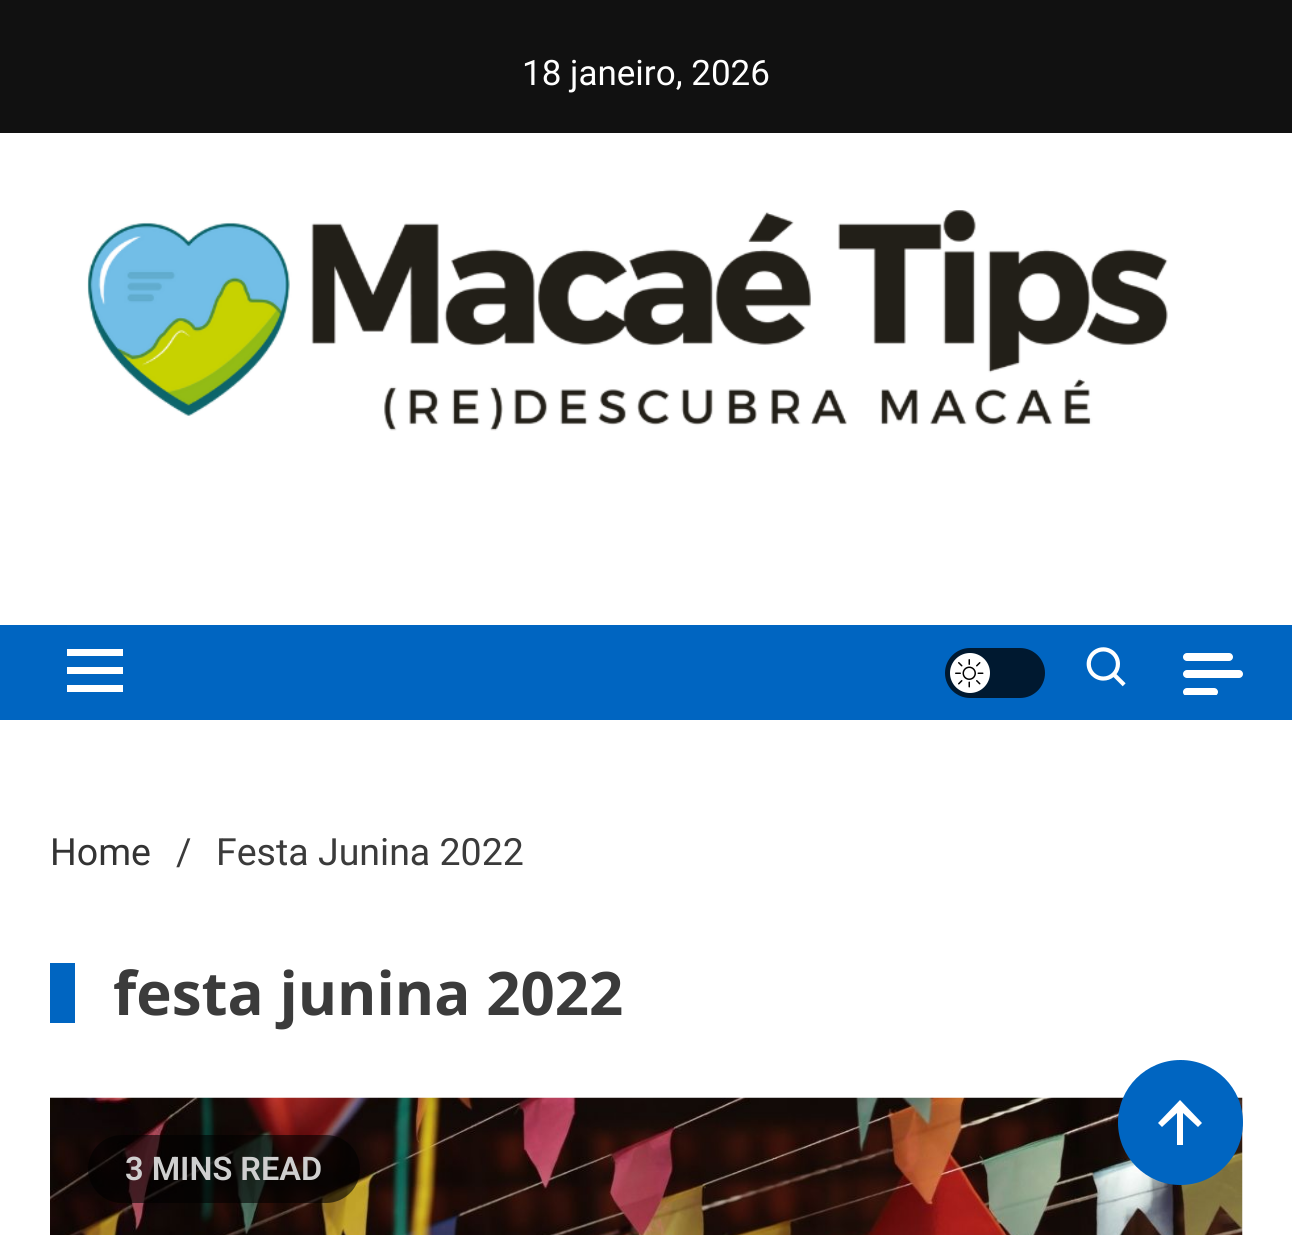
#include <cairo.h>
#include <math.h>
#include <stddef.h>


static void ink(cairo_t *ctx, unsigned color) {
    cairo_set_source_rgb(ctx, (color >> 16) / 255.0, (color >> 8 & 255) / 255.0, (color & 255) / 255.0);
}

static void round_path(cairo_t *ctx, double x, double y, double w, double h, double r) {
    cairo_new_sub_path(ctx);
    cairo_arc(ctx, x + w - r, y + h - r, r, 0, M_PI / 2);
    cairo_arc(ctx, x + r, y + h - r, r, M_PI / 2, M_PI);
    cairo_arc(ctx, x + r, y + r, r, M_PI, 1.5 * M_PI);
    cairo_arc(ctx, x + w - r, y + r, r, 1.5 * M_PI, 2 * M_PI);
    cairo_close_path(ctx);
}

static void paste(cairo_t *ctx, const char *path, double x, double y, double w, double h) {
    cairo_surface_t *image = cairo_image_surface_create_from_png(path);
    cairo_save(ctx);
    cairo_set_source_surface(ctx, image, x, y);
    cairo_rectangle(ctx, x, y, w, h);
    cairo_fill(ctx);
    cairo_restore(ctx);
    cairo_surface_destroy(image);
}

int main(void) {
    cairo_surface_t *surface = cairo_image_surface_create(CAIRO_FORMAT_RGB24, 1292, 1235);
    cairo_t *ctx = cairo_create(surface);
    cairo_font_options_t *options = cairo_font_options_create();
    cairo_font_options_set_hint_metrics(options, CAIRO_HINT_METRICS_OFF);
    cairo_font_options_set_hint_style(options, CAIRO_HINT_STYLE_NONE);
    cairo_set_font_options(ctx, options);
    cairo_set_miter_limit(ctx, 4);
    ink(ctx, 0xFFFFFF);
    cairo_paint(ctx);
    ink(ctx, 0x111111);
    cairo_rectangle(ctx, 0, 0, 1292, 133);
    cairo_fill(ctx);
    cairo_select_font_face(ctx, "Roboto", CAIRO_FONT_SLANT_NORMAL, CAIRO_FONT_WEIGHT_NORMAL);
    cairo_set_font_size(ctx, 35);
    ink(ctx, 0xFFFFFF);
    cairo_move_to(ctx, 522, 85);
    cairo_show_text(ctx, "18 janeiro, 2026");
    paste(ctx, "media/1.png", 87, 210, 1081, 221);
    ink(ctx, 0x0065C1);
    cairo_rectangle(ctx, 0, 625, 1292, 95);
    cairo_fill(ctx);
    ink(ctx, 0xFFFFFF);
    cairo_new_path(ctx);
    cairo_move_to(ctx, 67, 649);
    cairo_line_to(ctx, 123, 649);
    cairo_line_to(ctx, 123, 656);
    cairo_line_to(ctx, 67, 656);
    cairo_close_path(ctx);
    cairo_move_to(ctx, 67, 667);
    cairo_line_to(ctx, 123, 667);
    cairo_line_to(ctx, 123, 674);
    cairo_line_to(ctx, 67, 674);
    cairo_close_path(ctx);
    cairo_move_to(ctx, 67, 685);
    cairo_line_to(ctx, 123, 685);
    cairo_line_to(ctx, 123, 692);
    cairo_line_to(ctx, 67, 692);
    cairo_close_path(ctx);
    cairo_fill(ctx);
    ink(ctx, 0x001930);
    round_path(ctx, 945, 648, 100, 50, 25);
    cairo_fill(ctx);
    ink(ctx, 0xFFFFFF);
    cairo_arc(ctx, 970, 673, 20, 0, 2 * M_PI);
    cairo_fill(ctx);
    paste(ctx, "media/2.png", 955, 659, 29, 29);
    paste(ctx, "media/3.png", 1086, 647, 40, 40);
    round_path(ctx, 1183, 653, 50, 8, 4);
    cairo_fill(ctx);
    round_path(ctx, 1183, 670, 60, 8, 4);
    cairo_fill(ctx);
    cairo_save(ctx);
    cairo_rectangle(ctx, 1183, 653, 60, 42);
    cairo_clip(ctx);
    round_path(ctx, 1183, 688, 35, 8, 4);
    cairo_fill(ctx);
    cairo_restore(ctx);
    cairo_set_font_size(ctx, 37.5);
    ink(ctx, 0x333333);
    cairo_move_to(ctx, 50, 865);
    cairo_show_text(ctx, "Home");
    ink(ctx, 0x3B3B3B);
    cairo_move_to(ctx, 176, 865);
    cairo_show_text(ctx, "/");
    cairo_move_to(ctx, 216, 865);
    cairo_show_text(ctx, "Festa Junina 2022");
    ink(ctx, 0x0065C1);
    cairo_rectangle(ctx, 50, 963, 25, 60);
    cairo_fill(ctx);
    cairo_select_font_face(ctx, "Open Sans", CAIRO_FONT_SLANT_NORMAL, CAIRO_FONT_WEIGHT_BOLD);
    cairo_set_font_size(ctx, 60);
    ink(ctx, 0x3B3B3B);
    cairo_move_to(ctx, 113, 1015);
    cairo_show_text(ctx, "festa junina 2022");
    paste(ctx, "media/4.png", 50, 1097, 1193, 138);
    cairo_set_source_rgba(ctx, 0, 0, 0, 0.6);
    round_path(ctx, 88, 1135, 272, 68, 34);
    cairo_fill(ctx);
    cairo_select_font_face(ctx, "Roboto SemiBold", CAIRO_FONT_SLANT_NORMAL, CAIRO_FONT_WEIGHT_NORMAL);
    cairo_set_font_size(ctx, 32.5);
    ink(ctx, 0xCFCFCF);
    cairo_move_to(ctx, 125, 1180);
    cairo_show_text(ctx, "3 MINS READ");
    ink(ctx, 0x0065C1);
    cairo_new_path(ctx);
    cairo_arc(ctx, 1180.5, 1122.5, 62.5, 0, 2 * M_PI);
    cairo_fill(ctx);
    ink(ctx, 0xFFFFFF);
    cairo_new_path(ctx);
    cairo_move_to(ctx, 1177, 1113);
    cairo_line_to(ctx, 1177, 1145);
    cairo_line_to(ctx, 1183, 1145);
    cairo_line_to(ctx, 1183, 1113);
    cairo_line_to(ctx, 1198, 1127);
    cairo_line_to(ctx, 1202, 1123);
    cairo_line_to(ctx, 1180, 1100);
    cairo_line_to(ctx, 1158, 1123);
    cairo_line_to(ctx, 1162, 1127);
    cairo_close_path(ctx);
    cairo_fill(ctx);
    cairo_surface_write_to_png(surface, "image.png");
    cairo_font_options_destroy(options);
    cairo_destroy(ctx);
    cairo_surface_destroy(surface);
    return 0;
}
